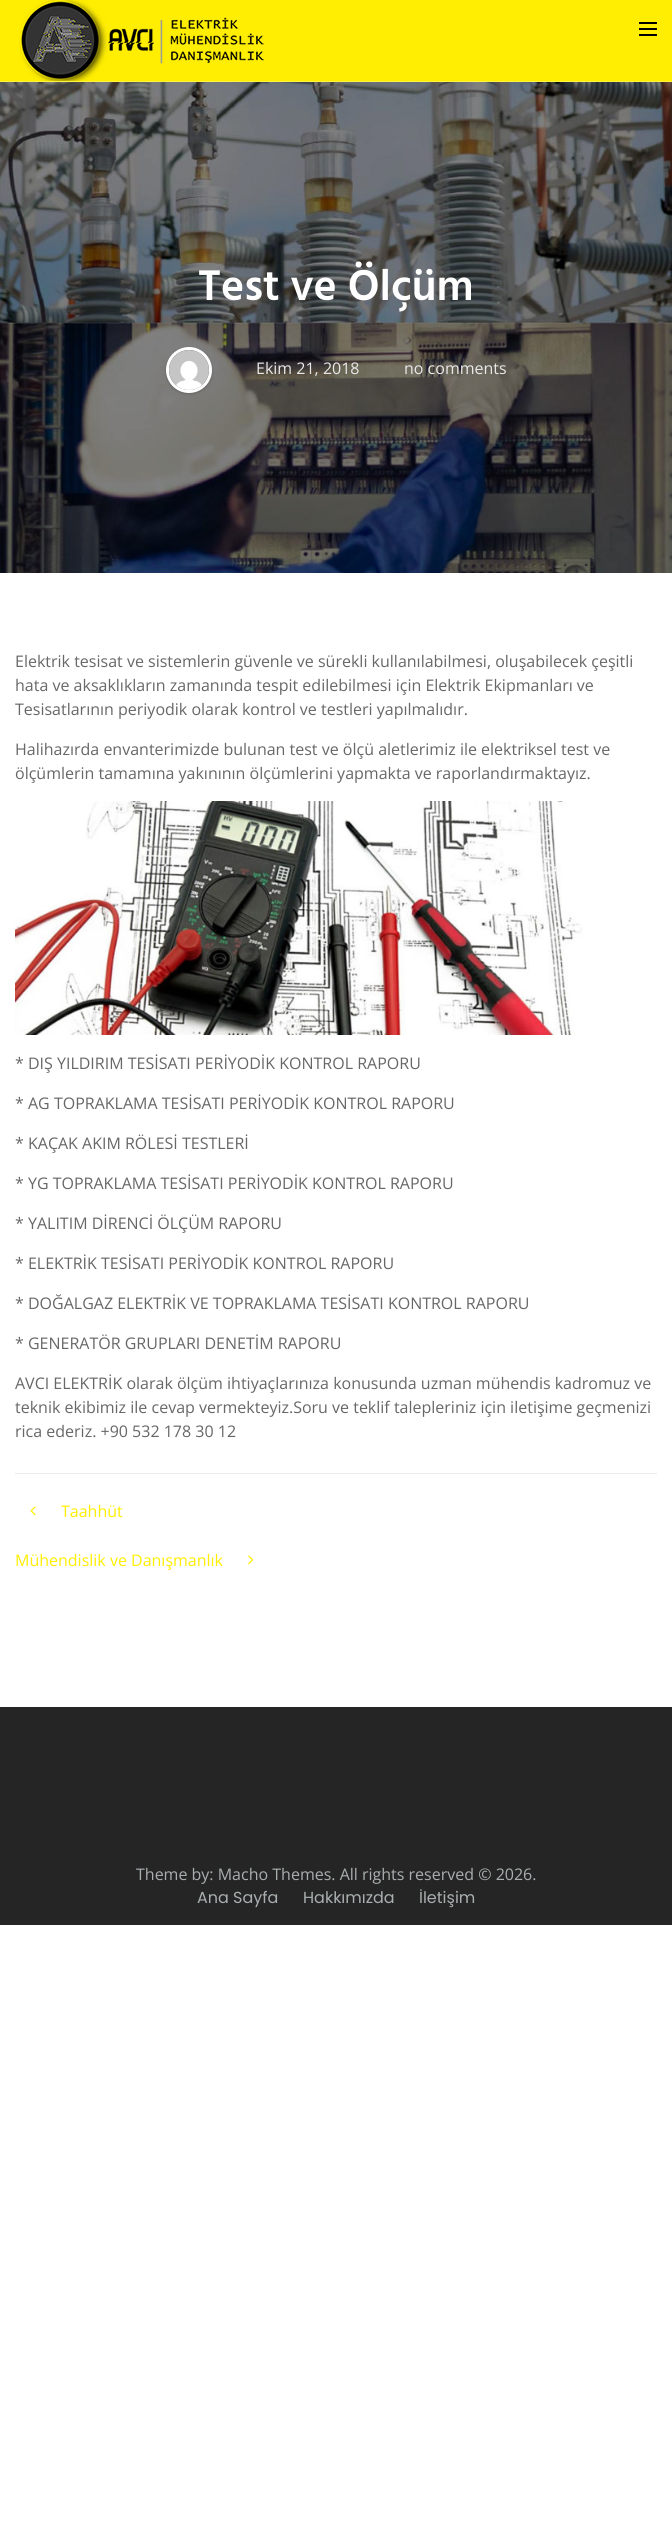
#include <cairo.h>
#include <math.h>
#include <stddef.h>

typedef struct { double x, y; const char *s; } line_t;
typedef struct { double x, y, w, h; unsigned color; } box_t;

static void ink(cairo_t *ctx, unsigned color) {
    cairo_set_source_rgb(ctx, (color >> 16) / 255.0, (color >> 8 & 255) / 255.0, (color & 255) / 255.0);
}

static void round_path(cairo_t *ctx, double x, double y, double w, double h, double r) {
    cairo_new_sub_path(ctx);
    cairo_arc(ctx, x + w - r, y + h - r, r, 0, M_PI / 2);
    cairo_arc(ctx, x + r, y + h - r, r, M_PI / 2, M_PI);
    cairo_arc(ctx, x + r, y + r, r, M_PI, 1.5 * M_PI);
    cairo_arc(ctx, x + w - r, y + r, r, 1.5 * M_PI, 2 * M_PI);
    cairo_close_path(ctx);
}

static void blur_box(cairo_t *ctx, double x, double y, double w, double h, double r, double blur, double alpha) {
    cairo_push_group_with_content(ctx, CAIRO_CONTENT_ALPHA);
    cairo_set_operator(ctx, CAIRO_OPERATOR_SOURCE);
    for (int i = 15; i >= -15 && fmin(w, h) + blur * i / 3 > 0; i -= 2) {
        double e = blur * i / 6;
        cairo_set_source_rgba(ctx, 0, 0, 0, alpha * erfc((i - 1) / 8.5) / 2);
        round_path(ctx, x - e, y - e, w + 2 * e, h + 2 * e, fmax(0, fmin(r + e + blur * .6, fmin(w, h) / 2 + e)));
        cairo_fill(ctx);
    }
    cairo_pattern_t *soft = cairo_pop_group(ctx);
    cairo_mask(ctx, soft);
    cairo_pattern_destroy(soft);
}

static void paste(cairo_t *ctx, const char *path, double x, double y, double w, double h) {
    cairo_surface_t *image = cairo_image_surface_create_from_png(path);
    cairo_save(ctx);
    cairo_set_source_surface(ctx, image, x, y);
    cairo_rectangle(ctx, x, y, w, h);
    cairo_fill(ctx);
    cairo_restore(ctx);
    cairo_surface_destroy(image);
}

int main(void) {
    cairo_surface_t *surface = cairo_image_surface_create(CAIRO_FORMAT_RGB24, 672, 2528);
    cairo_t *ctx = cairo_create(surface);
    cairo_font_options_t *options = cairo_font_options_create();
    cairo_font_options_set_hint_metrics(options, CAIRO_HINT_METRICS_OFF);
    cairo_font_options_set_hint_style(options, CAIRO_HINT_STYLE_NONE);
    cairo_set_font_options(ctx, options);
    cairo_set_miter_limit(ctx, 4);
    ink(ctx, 0xFFFFFF);
    cairo_paint(ctx);
    ink(ctx, 0xFFEE01);
    cairo_rectangle(ctx, 0, 0, 672, 81);
    cairo_fill(ctx);
    ink(ctx, 0xFFF241);
    cairo_rectangle(ctx, 0, 81, 672, 1);
    cairo_fill(ctx);
    paste(ctx, "media/1.png", 19, 0, 245, 81);
    {
        static const box_t items[] = {
            {639, 28, 18, 2, 0x000000},
            {639, 22, 18, 2, 0x000000},
            {639, 34, 18, 2, 0x000000},
        };
        for (size_t i = 0; i < sizeof items / sizeof *items; i++) {
            ink(ctx, items[i].color);
            cairo_rectangle(ctx, items[i].x, items[i].y, items[i].w, items[i].h);
            cairo_fill(ctx);
        }
    }
    paste(ctx, "media/2.png", 0, 82, 672, 491);
    cairo_select_font_face(ctx, "Hind SemiBold", CAIRO_FONT_SLANT_NORMAL, CAIRO_FONT_WEIGHT_NORMAL);
    cairo_set_font_size(ctx, 44);
    ink(ctx, 0xFFFFFF);
    cairo_move_to(ctx, 198, 300);
    cairo_show_text(ctx, "Test ve Ölçüm");
    ink(ctx, 0x000000);
    blur_box(ctx, 166, 348, 46, 46, 23, 1.5, 0.2);
    cairo_arc(ctx, 189, 370, 21.5, 0, 2 * M_PI);
    ink(ctx, 0xFFFFFF);
    cairo_set_line_width(ctx, 3);
    cairo_stroke(ctx);
    paste(ctx, "media/3.png", 169, 350, 40, 40);
    cairo_select_font_face(ctx, "Open Sans", CAIRO_FONT_SLANT_NORMAL, CAIRO_FONT_WEIGHT_NORMAL);
    cairo_set_font_size(ctx, 16);
    ink(ctx, 0xE8E8E8);
    cairo_move_to(ctx, 256, 374);
    cairo_show_text(ctx, "Ekim 21, 2018");
    cairo_move_to(ctx, 404, 374);
    cairo_show_text(ctx, "no comments");
    ink(ctx, 0x676767);
    {
        static const line_t items[] = {
            {15, 667, "Elektrik tesisat ve sistemlerin güvenle ve sürekli kullanılabilmesi, oluşabilecek çeşitli"},
            {15, 691, "hata ve aksaklıkların zamanında tespit edilebilmesi için Elektrik Ekipmanları ve"},
            {15, 715, "Tesisatlarının periyodik olarak kontrol ve testleri yapılmalıdır."},
            {15, 755, "Halihazırda envanterimizde bulunan test ve ölçü aletlerimiz ile elektriksel test ve"},
            {15, 779, "ölçümlerin tamamına yakınının ölçümlerini yapmakta ve raporlandırmaktayız."},
        };
        for (size_t i = 0; i < sizeof items / sizeof *items; i++) {
            cairo_move_to(ctx, items[i].x, items[i].y);
            cairo_show_text(ctx, items[i].s);
        }
    }
    paste(ctx, "media/4.png", 15, 801, 568, 234);
    {
        static const line_t items[] = {
            {15, 1069, "* DIŞ YILDIRIM TESİSATI PERİYODİK KONTROL RAPORU"},
            {15, 1109, "* AG TOPRAKLAMA TESİSATI PERİYODİK KONTROL RAPORU"},
            {15, 1149, "* KAÇAK AKIM RÖLESİ TESTLERİ"},
            {15, 1189, "* YG TOPRAKLAMA TESİSATI PERİYODİK KONTROL RAPORU"},
            {15, 1229, "* YALITIM DİRENCİ ÖLÇÜM RAPORU"},
            {15, 1269, "* ELEKTRİK TESİSATI PERİYODİK KONTROL RAPORU"},
            {15, 1309, "* DOĞALGAZ ELEKTRİK VE TOPRAKLAMA TESİSATI KONTROL RAPORU"},
            {15, 1349, "* GENERATÖR GRUPLARI DENETİM RAPORU"},
            {15, 1389, "AVCI ELEKTRİK olarak ölçüm ihtiyaçlarınıza konusunda uzman mühendis kadromuz ve"},
            {15, 1413, "teknik ekibimiz ile cevap vermekteyiz.Soru ve teklif talepleriniz için iletişime geçmenizi"},
            {15, 1437, "rica ederiz. +90 532 178 30 12"},
        };
        for (size_t i = 0; i < sizeof items / sizeof *items; i++) {
            cairo_move_to(ctx, items[i].x, items[i].y);
            cairo_show_text(ctx, items[i].s);
        }
    }
    ink(ctx, 0xEBEBEB);
    cairo_rectangle(ctx, 15, 1473, 642, 1);
    cairo_fill(ctx);
    paste(ctx, "media/5.png", 30, 1506, 6, 10);
    ink(ctx, 0xFFEE01);
    cairo_move_to(ctx, 61, 1517);
    cairo_show_text(ctx, "Taahhüt");
    cairo_move_to(ctx, 15, 1566);
    cairo_show_text(ctx, "Mühendislik ve Danışmanlık");
    paste(ctx, "media/6.png", 248, 1555, 6, 10);
    ink(ctx, 0x252525);
    cairo_rectangle(ctx, 0, 1707, 672, 218);
    cairo_fill(ctx);
    ink(ctx, 0xA9AFB1);
    cairo_move_to(ctx, 136, 1880);
    cairo_show_text(ctx, "Theme by: Macho Themes. All rights reserved © 2026.");
    cairo_select_font_face(ctx, "Poppins", CAIRO_FONT_SLANT_NORMAL, CAIRO_FONT_WEIGHT_NORMAL);
    {
        static const line_t items[] = {
            {197, 1903, "Ana Sayfa"},
            {303, 1903, "Hakkımızda"},
            {419, 1903, "İletişim"},
        };
        for (size_t i = 0; i < sizeof items / sizeof *items; i++) {
            cairo_move_to(ctx, items[i].x, items[i].y);
            cairo_show_text(ctx, items[i].s);
        }
    }
    cairo_surface_write_to_png(surface, "image.png");
    cairo_font_options_destroy(options);
    cairo_destroy(ctx);
    cairo_surface_destroy(surface);
    return 0;
}
